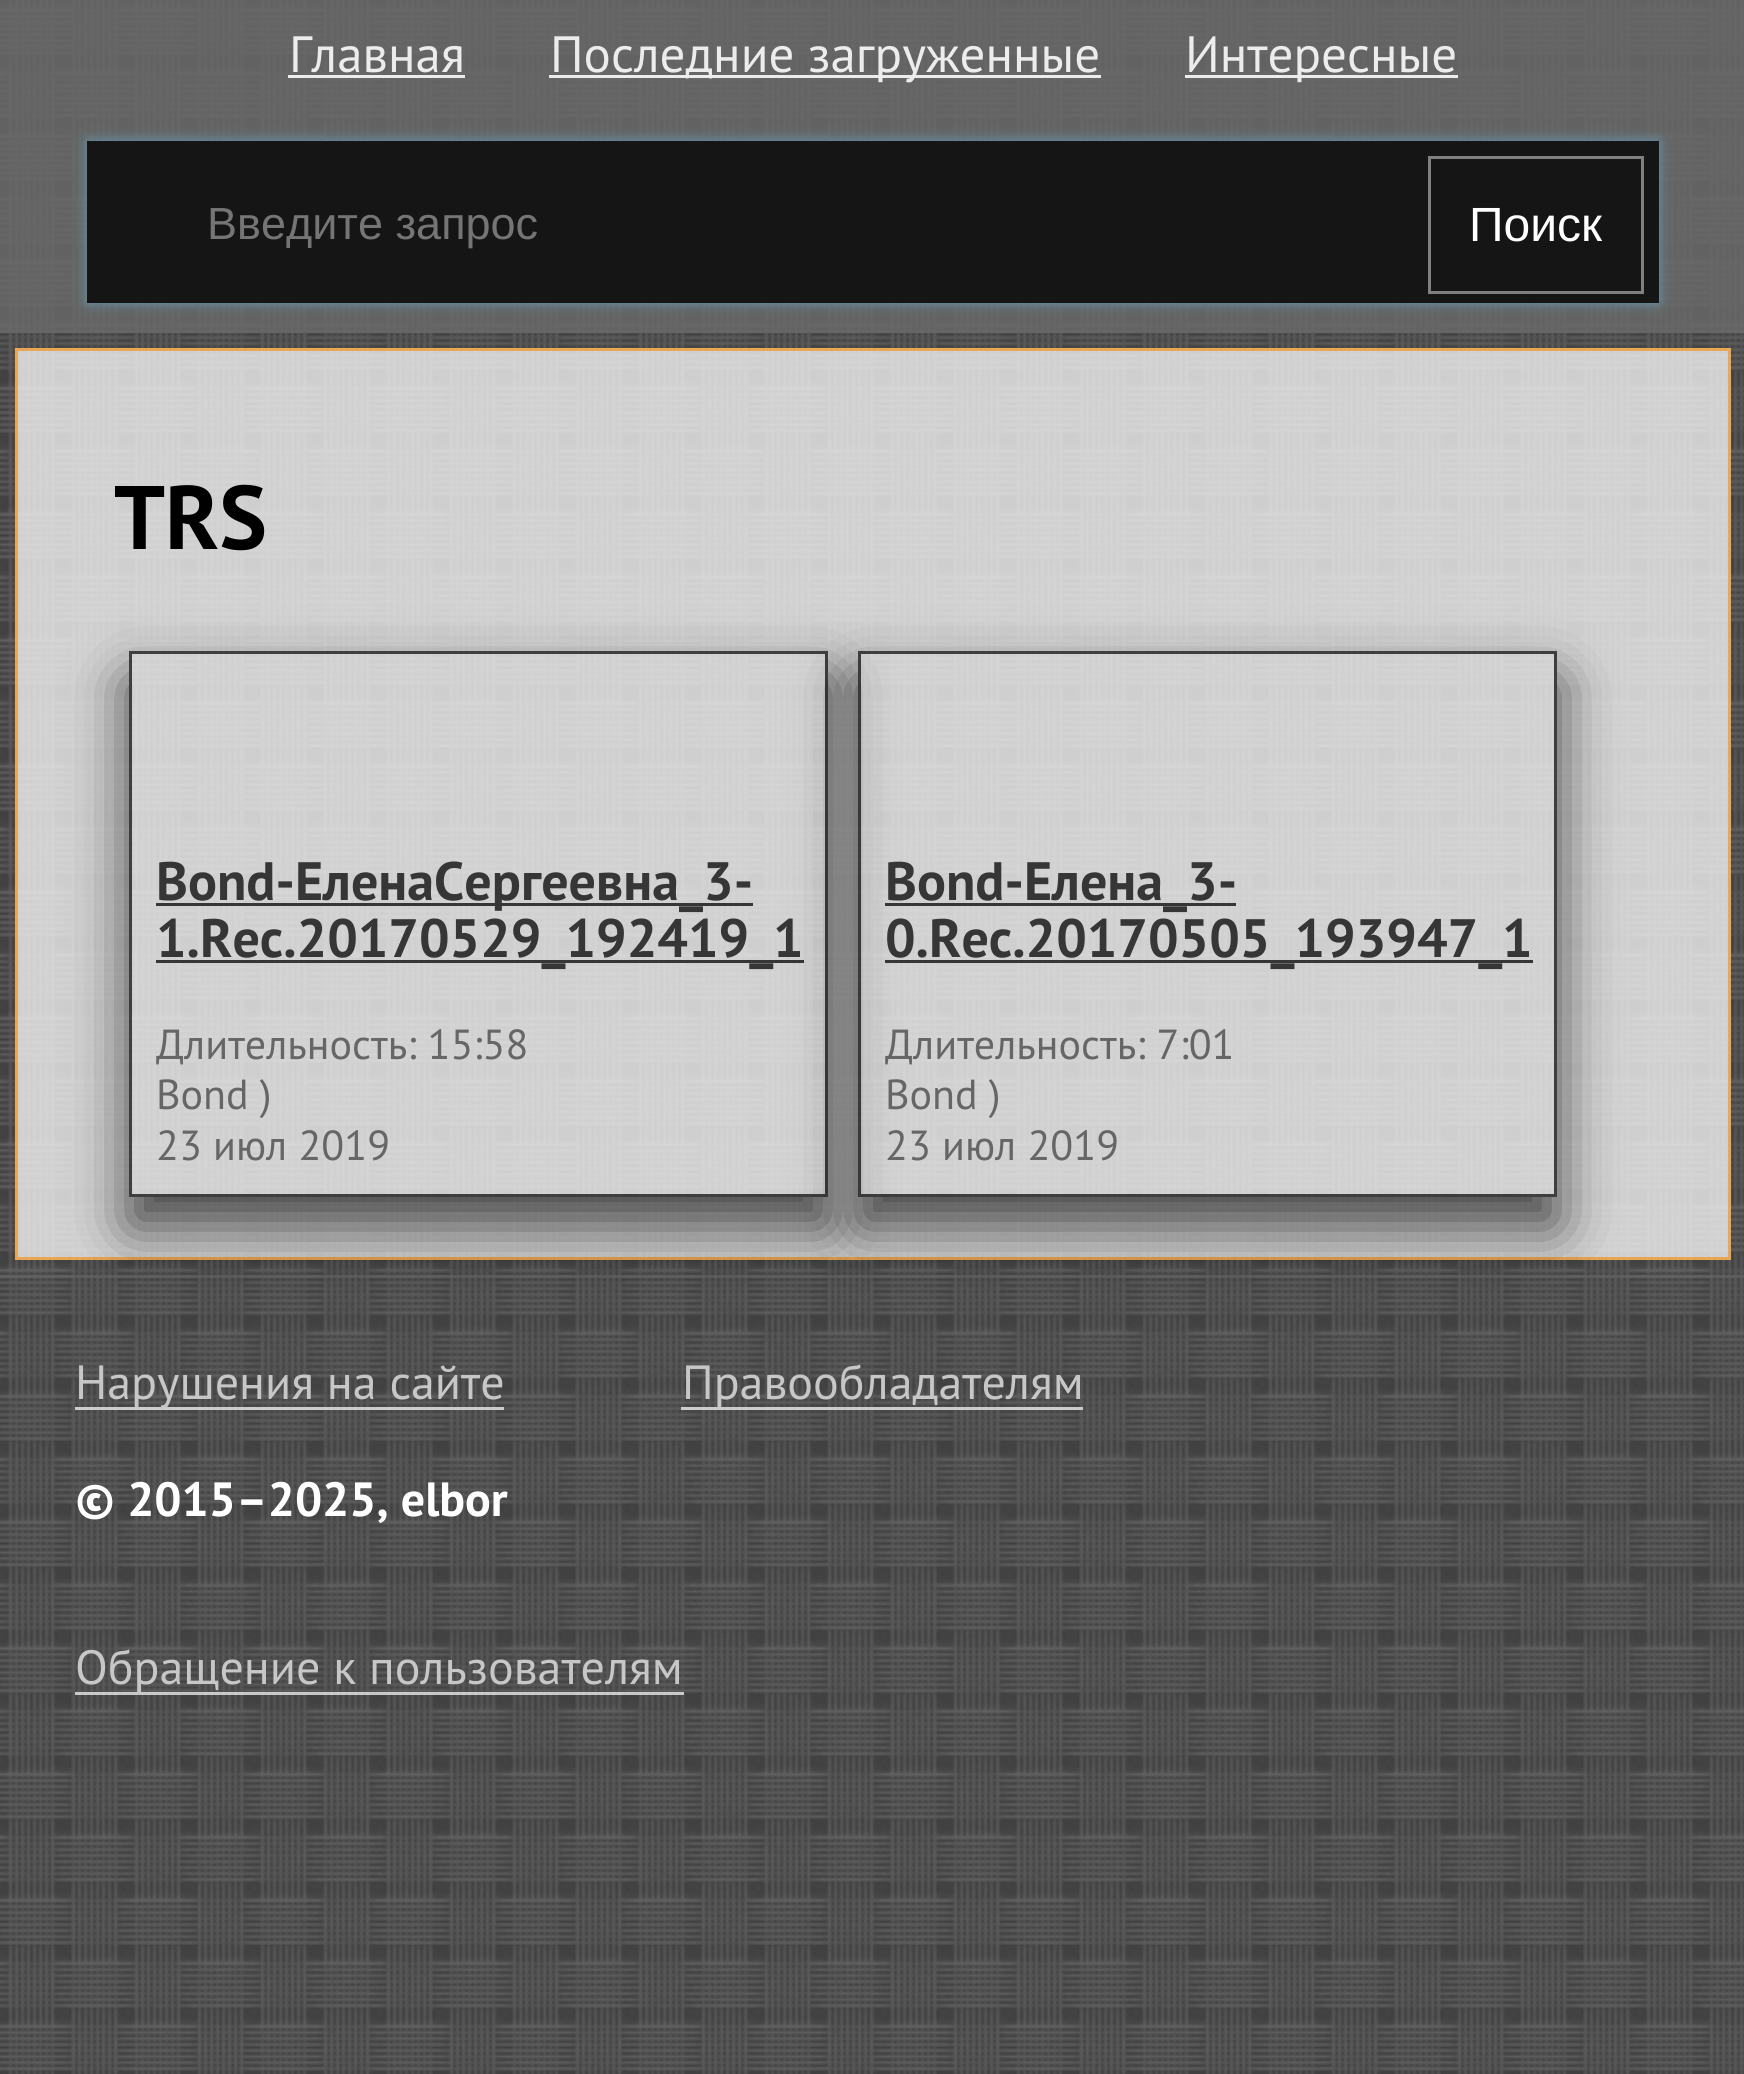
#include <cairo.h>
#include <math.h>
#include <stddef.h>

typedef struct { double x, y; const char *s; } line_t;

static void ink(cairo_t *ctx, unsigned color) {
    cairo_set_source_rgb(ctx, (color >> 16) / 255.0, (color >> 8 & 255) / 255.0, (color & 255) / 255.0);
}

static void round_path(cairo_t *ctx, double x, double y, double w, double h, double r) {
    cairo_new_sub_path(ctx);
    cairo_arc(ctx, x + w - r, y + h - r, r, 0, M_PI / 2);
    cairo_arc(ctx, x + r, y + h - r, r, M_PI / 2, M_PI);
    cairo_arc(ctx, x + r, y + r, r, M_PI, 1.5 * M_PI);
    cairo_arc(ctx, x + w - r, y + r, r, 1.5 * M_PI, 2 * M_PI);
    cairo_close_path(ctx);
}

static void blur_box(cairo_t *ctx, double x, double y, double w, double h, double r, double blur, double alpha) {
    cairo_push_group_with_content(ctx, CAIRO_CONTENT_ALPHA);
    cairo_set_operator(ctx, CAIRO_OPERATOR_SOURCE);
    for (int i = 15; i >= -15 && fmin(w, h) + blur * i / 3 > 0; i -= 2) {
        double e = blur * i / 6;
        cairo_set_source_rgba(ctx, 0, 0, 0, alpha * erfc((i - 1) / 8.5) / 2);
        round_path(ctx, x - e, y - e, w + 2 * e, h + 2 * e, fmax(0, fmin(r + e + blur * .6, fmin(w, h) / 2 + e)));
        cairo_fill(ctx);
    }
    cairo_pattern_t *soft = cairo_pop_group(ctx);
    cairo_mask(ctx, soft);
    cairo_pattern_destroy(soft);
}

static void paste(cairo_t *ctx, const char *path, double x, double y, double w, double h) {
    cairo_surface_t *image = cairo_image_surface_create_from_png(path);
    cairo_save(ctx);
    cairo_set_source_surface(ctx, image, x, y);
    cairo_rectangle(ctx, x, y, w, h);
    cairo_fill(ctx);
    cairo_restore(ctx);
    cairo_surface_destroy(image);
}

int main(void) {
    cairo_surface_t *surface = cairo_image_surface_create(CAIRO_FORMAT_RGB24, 1744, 2074);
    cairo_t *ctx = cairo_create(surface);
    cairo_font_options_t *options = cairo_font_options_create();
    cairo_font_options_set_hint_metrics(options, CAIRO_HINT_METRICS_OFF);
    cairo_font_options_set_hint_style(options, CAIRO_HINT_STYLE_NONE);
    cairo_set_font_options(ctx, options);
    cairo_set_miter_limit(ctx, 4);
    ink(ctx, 0xFFFFFF);
    cairo_paint(ctx);
    paste(ctx, "media/1.png", 0, 0, 1744, 2074);
    cairo_set_source_rgba(ctx, 0.416, 0.416, 0.416, 0.8);
    cairo_rectangle(ctx, 0, 0, 1744, 333);
    cairo_fill(ctx);
    cairo_select_font_face(ctx, "PT Sans", CAIRO_FONT_SLANT_NORMAL, CAIRO_FONT_WEIGHT_NORMAL);
    cairo_set_font_size(ctx, 51);
    ink(ctx, 0xECECEC);
    cairo_move_to(ctx, 289, 72);
    cairo_show_text(ctx, "Главная");
    cairo_rectangle(ctx, 288, 75, 177, 3);
    cairo_fill(ctx);
    cairo_rectangle(ctx, 549, 75, 552, 3);
    cairo_fill(ctx);
    cairo_move_to(ctx, 550, 72);
    cairo_show_text(ctx, "Последние загруженные");
    cairo_rectangle(ctx, 1185, 75, 273, 3);
    cairo_fill(ctx);
    cairo_move_to(ctx, 1185, 72);
    cairo_show_text(ctx, "Интересные");
    ink(ctx, 0x67CCFF);
    blur_box(ctx, 87, 141, 1572, 162, 0, 6, 0.5);
    ink(ctx, 0x151515);
    cairo_rectangle(ctx, 87, 141, 1572, 162);
    cairo_fill(ctx);
    cairo_select_font_face(ctx, "Liberation Sans", CAIRO_FONT_SLANT_NORMAL, CAIRO_FONT_WEIGHT_NORMAL);
    cairo_set_font_size(ctx, 45);
    ink(ctx, 0x757575);
    cairo_move_to(ctx, 207, 239);
    cairo_show_text(ctx, "Введите запрос");
    cairo_rectangle(ctx, 1429.5, 157.5, 213, 135);
    ink(ctx, 0x808080);
    cairo_set_line_width(ctx, 3);
    cairo_stroke(ctx);
    cairo_set_font_size(ctx, 48);
    ink(ctx, 0xFFFFFF);
    cairo_move_to(ctx, 1469, 241);
    cairo_show_text(ctx, "Поиск");
    cairo_set_source_rgba(ctx, 0.992, 0.992, 0.992, 0.75);
    cairo_rectangle(ctx, 15, 348, 1716, 912);
    cairo_fill(ctx);
    cairo_rectangle(ctx, 16.5, 349.5, 1713, 909);
    cairo_set_source_rgba(ctx, 0.973, 0.537, 0.004, 0.6);
    cairo_stroke(ctx);
    cairo_select_font_face(ctx, "PT Sans", CAIRO_FONT_SLANT_NORMAL, CAIRO_FONT_WEIGHT_BOLD);
    cairo_set_font_size(ctx, 90);
    ink(ctx, 0x000000);
    cairo_move_to(ctx, 114, 549);
    cairo_show_text(ctx, "TRS");
    cairo_set_source_rgba(ctx, 0.408, 0.408, 0.408, 0.5);
    cairo_rectangle(ctx, 0, 1275, 1744, 3);
    cairo_fill(ctx);
    cairo_save(ctx);
    cairo_set_fill_rule(ctx, CAIRO_FILL_RULE_EVEN_ODD);
    cairo_new_path(ctx);
    cairo_move_to(ctx, 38, 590);
    cairo_line_to(ctx, 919, 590);
    cairo_line_to(ctx, 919, 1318);
    cairo_line_to(ctx, 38, 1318);
    cairo_close_path(ctx);
    cairo_move_to(ctx, 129, 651);
    cairo_line_to(ctx, 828, 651);
    cairo_line_to(ctx, 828, 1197);
    cairo_line_to(ctx, 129, 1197);
    cairo_close_path(ctx);
    cairo_clip(ctx);
    ink(ctx, 0x000000);
    blur_box(ctx, 129, 681, 699, 546, 0, 30, 0.67);
    cairo_restore(ctx);
    cairo_rectangle(ctx, 130.5, 652.5, 696, 543);
    cairo_set_source_rgba(ctx, 0, 0, 0, 0.7);
    cairo_stroke(ctx);
    ink(ctx, 0x363636);
    cairo_rectangle(ctx, 156, 903, 597, 3);
    cairo_fill(ctx);
    cairo_set_font_size(ctx, 54);
    cairo_move_to(ctx, 156, 900);
    cairo_show_text(ctx, "Bond-ЕленаСергеевна_3-");
    cairo_rectangle(ctx, 156, 960, 648, 3);
    cairo_fill(ctx);
    cairo_move_to(ctx, 156, 957);
    cairo_show_text(ctx, "1.Rec.20170529_192419_1");
    cairo_select_font_face(ctx, "PT Sans", CAIRO_FONT_SLANT_NORMAL, CAIRO_FONT_WEIGHT_NORMAL);
    cairo_set_font_size(ctx, 42);
    ink(ctx, 0x666666);
    {
        static const line_t items[] = {
            {156, 1059, "Длительность: 15:58"},
            {156, 1109, "Bond )"},
            {156, 1160, "23 июл 2019"},
        };
        for (size_t i = 0; i < sizeof items / sizeof *items; i++) {
            cairo_move_to(ctx, items[i].x, items[i].y);
            cairo_show_text(ctx, items[i].s);
        }
    }
    cairo_save(ctx);
    cairo_set_fill_rule(ctx, CAIRO_FILL_RULE_EVEN_ODD);
    cairo_new_path(ctx);
    cairo_move_to(ctx, 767, 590);
    cairo_line_to(ctx, 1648, 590);
    cairo_line_to(ctx, 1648, 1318);
    cairo_line_to(ctx, 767, 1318);
    cairo_close_path(ctx);
    cairo_move_to(ctx, 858, 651);
    cairo_line_to(ctx, 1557, 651);
    cairo_line_to(ctx, 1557, 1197);
    cairo_line_to(ctx, 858, 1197);
    cairo_close_path(ctx);
    cairo_clip(ctx);
    ink(ctx, 0x000000);
    blur_box(ctx, 858, 681, 699, 546, 0, 30, 0.67);
    cairo_restore(ctx);
    cairo_rectangle(ctx, 859.5, 652.5, 696, 543);
    cairo_set_source_rgba(ctx, 0, 0, 0, 0.7);
    cairo_stroke(ctx);
    ink(ctx, 0x363636);
    cairo_rectangle(ctx, 885, 903, 351, 3);
    cairo_fill(ctx);
    cairo_select_font_face(ctx, "PT Sans", CAIRO_FONT_SLANT_NORMAL, CAIRO_FONT_WEIGHT_BOLD);
    cairo_set_font_size(ctx, 54);
    cairo_move_to(ctx, 885, 900);
    cairo_show_text(ctx, "Bond-Елена_3-");
    cairo_rectangle(ctx, 885, 960, 648, 3);
    cairo_fill(ctx);
    cairo_move_to(ctx, 885, 957);
    cairo_show_text(ctx, "0.Rec.20170505_193947_1");
    cairo_select_font_face(ctx, "PT Sans", CAIRO_FONT_SLANT_NORMAL, CAIRO_FONT_WEIGHT_NORMAL);
    cairo_set_font_size(ctx, 42);
    ink(ctx, 0x666666);
    {
        static const line_t items[] = {
            {885, 1059, "Длительность: 7:01"},
            {885, 1109, "Bond )"},
            {885, 1160, "23 июл 2019"},
        };
        for (size_t i = 0; i < sizeof items / sizeof *items; i++) {
            cairo_move_to(ctx, items[i].x, items[i].y);
            cairo_show_text(ctx, items[i].s);
        }
    }
    cairo_set_source_rgba(ctx, 1, 1, 1, 0.7);
    cairo_rectangle(ctx, 75, 1407, 429, 3);
    cairo_fill(ctx);
    cairo_set_font_size(ctx, 48);
    ink(ctx, 0xC7C7C7);
    cairo_move_to(ctx, 75, 1399);
    cairo_show_text(ctx, "Нарушения на сайте");
    cairo_set_source_rgba(ctx, 1, 1, 1, 0.7);
    cairo_rectangle(ctx, 681, 1407, 402, 3);
    cairo_fill(ctx);
    ink(ctx, 0xC7C7C7);
    cairo_move_to(ctx, 682, 1399);
    cairo_show_text(ctx, "Правообладателям");
    cairo_select_font_face(ctx, "PT Sans", CAIRO_FONT_SLANT_NORMAL, CAIRO_FONT_WEIGHT_BOLD);
    ink(ctx, 0xFFFFFF);
    cairo_move_to(ctx, 75, 1516);
    cairo_show_text(ctx, "© 2015–2025, elbor");
    cairo_set_source_rgba(ctx, 1, 1, 1, 0.7);
    cairo_rectangle(ctx, 75, 1692, 609, 3);
    cairo_fill(ctx);
    cairo_select_font_face(ctx, "PT Sans", CAIRO_FONT_SLANT_NORMAL, CAIRO_FONT_WEIGHT_NORMAL);
    ink(ctx, 0xC7C7C7);
    cairo_move_to(ctx, 75, 1684);
    cairo_show_text(ctx, "Обращение к пользователям");
    cairo_surface_write_to_png(surface, "image.png");
    cairo_font_options_destroy(options);
    cairo_destroy(ctx);
    cairo_surface_destroy(surface);
    return 0;
}
